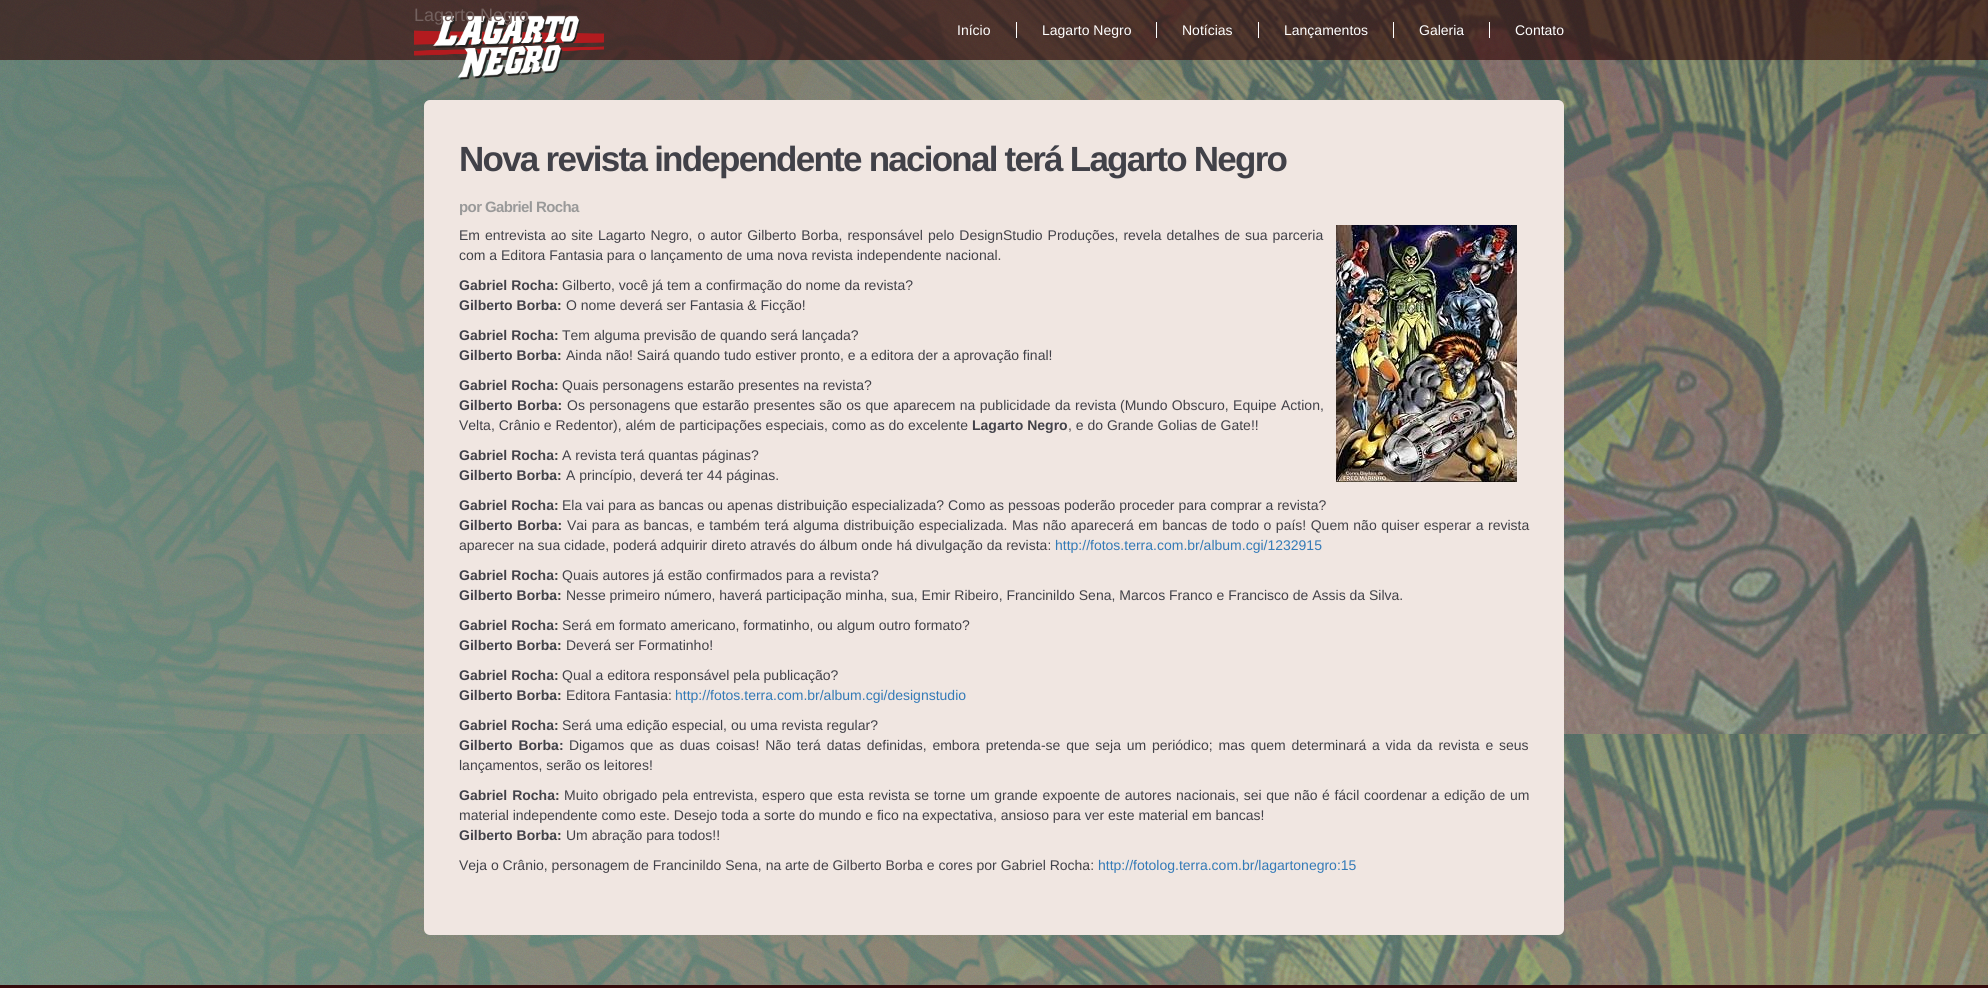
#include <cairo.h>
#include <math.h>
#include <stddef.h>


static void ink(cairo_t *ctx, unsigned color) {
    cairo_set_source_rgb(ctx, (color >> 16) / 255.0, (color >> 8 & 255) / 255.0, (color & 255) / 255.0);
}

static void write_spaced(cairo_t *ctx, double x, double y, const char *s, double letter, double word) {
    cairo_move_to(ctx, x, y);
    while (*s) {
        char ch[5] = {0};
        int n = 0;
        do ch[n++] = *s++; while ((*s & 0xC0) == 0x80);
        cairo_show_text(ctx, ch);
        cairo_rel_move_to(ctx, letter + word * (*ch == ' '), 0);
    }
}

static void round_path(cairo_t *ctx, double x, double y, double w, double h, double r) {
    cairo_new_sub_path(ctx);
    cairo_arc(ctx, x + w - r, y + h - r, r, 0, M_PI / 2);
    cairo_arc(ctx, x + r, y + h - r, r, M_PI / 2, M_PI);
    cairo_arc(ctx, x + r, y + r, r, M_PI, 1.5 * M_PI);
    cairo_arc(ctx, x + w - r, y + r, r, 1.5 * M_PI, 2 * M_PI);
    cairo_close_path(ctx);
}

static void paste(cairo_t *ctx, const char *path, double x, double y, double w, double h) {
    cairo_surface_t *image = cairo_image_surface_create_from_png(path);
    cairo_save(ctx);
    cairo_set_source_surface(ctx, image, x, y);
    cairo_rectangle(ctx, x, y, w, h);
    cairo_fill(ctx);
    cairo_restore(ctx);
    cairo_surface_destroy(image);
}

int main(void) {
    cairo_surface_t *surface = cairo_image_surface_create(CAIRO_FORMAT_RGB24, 1988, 988);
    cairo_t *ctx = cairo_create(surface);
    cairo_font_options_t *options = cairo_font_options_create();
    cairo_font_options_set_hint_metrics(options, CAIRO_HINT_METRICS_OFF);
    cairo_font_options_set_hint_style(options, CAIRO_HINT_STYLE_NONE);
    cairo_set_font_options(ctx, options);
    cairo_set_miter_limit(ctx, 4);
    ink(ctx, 0xFFFFFF);
    cairo_paint(ctx);
    paste(ctx, "media/1.png", 0, 0, 1988, 985);
    cairo_set_source_rgba(ctx, 0.18, 0, 0, 0.6);
    cairo_rectangle(ctx, 0, 0, 1988, 60);
    cairo_fill(ctx);
    paste(ctx, "media/2.png", 414, 15, 190, 65);
    cairo_select_font_face(ctx, "Liberation Sans", CAIRO_FONT_SLANT_NORMAL, CAIRO_FONT_WEIGHT_NORMAL);
    cairo_set_font_size(ctx, 18);
    ink(ctx, 0x73615E);
    cairo_move_to(ctx, 414, 21);
    cairo_show_text(ctx, "Lagarto Negro");
    cairo_set_font_size(ctx, 14);
    ink(ctx, 0xFFFFFF);
    cairo_move_to(ctx, 957, 35);
    cairo_show_text(ctx, "Início");
    cairo_rectangle(ctx, 1016, 22, 1, 16);
    cairo_fill(ctx);
    cairo_move_to(ctx, 1042, 35);
    cairo_show_text(ctx, "Lagarto Negro");
    cairo_rectangle(ctx, 1156, 22, 1, 16);
    cairo_fill(ctx);
    cairo_move_to(ctx, 1182, 35);
    cairo_show_text(ctx, "Notícias");
    cairo_rectangle(ctx, 1258, 22, 1, 16);
    cairo_fill(ctx);
    cairo_move_to(ctx, 1284, 35);
    cairo_show_text(ctx, "Lançamentos");
    cairo_rectangle(ctx, 1393, 22, 1, 16);
    cairo_fill(ctx);
    cairo_move_to(ctx, 1419, 35);
    cairo_show_text(ctx, "Galeria");
    cairo_rectangle(ctx, 1489, 22, 1, 16);
    cairo_fill(ctx);
    cairo_move_to(ctx, 1515, 35);
    cairo_show_text(ctx, "Contato");
    ink(ctx, 0xF0E6E1);
    round_path(ctx, 424, 100, 1140, 835, 6);
    cairo_fill(ctx);
    cairo_select_font_face(ctx, "Liberation Sans", CAIRO_FONT_SLANT_NORMAL, CAIRO_FONT_WEIGHT_BOLD);
    cairo_set_font_size(ctx, 35);
    ink(ctx, 0x414148);
    write_spaced(ctx, 459, 171, "Nova revista independente nacional terá Lagarto Negro", -1.75, 0);
    cairo_set_font_size(ctx, 15);
    ink(ctx, 0x999999);
    write_spaced(ctx, 459, 212, "por Gabriel Rocha", -0.6, 0);
    cairo_select_font_face(ctx, "Liberation Sans", CAIRO_FONT_SLANT_NORMAL, CAIRO_FONT_WEIGHT_NORMAL);
    cairo_set_font_size(ctx, 14);
    ink(ctx, 0x414148);
    write_spaced(ctx, 459, 240, "Em entrevista ao site Lagarto Negro, o autor Gilberto Borba, responsável pelo DesignStudio Produções, revela detalhes de sua parceria", 0, 1.1);
    paste(ctx, "media/3.png", 1336, 225, 181, 257);
    cairo_move_to(ctx, 459, 260);
    cairo_show_text(ctx, "com a Editora Fantasia para o lançamento de uma nova revista independente nacional.");
    cairo_select_font_face(ctx, "Liberation Sans", CAIRO_FONT_SLANT_NORMAL, CAIRO_FONT_WEIGHT_BOLD);
    cairo_move_to(ctx, 459, 290);
    cairo_show_text(ctx, "Gabriel Rocha:");
    cairo_select_font_face(ctx, "Liberation Sans", CAIRO_FONT_SLANT_NORMAL, CAIRO_FONT_WEIGHT_NORMAL);
    cairo_move_to(ctx, 562, 290);
    cairo_show_text(ctx, "Gilberto, você já tem a confirmação do nome da revista?");
    cairo_select_font_face(ctx, "Liberation Sans", CAIRO_FONT_SLANT_NORMAL, CAIRO_FONT_WEIGHT_BOLD);
    cairo_move_to(ctx, 459, 310);
    cairo_show_text(ctx, "Gilberto Borba:");
    cairo_select_font_face(ctx, "Liberation Sans", CAIRO_FONT_SLANT_NORMAL, CAIRO_FONT_WEIGHT_NORMAL);
    cairo_move_to(ctx, 566, 310);
    cairo_show_text(ctx, "O nome deverá ser Fantasia & Ficção!");
    cairo_select_font_face(ctx, "Liberation Sans", CAIRO_FONT_SLANT_NORMAL, CAIRO_FONT_WEIGHT_BOLD);
    cairo_move_to(ctx, 459, 340);
    cairo_show_text(ctx, "Gabriel Rocha:");
    cairo_select_font_face(ctx, "Liberation Sans", CAIRO_FONT_SLANT_NORMAL, CAIRO_FONT_WEIGHT_NORMAL);
    cairo_move_to(ctx, 562, 340);
    cairo_show_text(ctx, "Tem alguma previsão de quando será lançada?");
    cairo_select_font_face(ctx, "Liberation Sans", CAIRO_FONT_SLANT_NORMAL, CAIRO_FONT_WEIGHT_BOLD);
    cairo_move_to(ctx, 459, 360);
    cairo_show_text(ctx, "Gilberto Borba:");
    cairo_select_font_face(ctx, "Liberation Sans", CAIRO_FONT_SLANT_NORMAL, CAIRO_FONT_WEIGHT_NORMAL);
    cairo_move_to(ctx, 566, 360);
    cairo_show_text(ctx, "Ainda não! Sairá quando tudo estiver pronto, e a editora der a aprovação final!");
    cairo_select_font_face(ctx, "Liberation Sans", CAIRO_FONT_SLANT_NORMAL, CAIRO_FONT_WEIGHT_BOLD);
    cairo_move_to(ctx, 459, 390);
    cairo_show_text(ctx, "Gabriel Rocha:");
    cairo_select_font_face(ctx, "Liberation Sans", CAIRO_FONT_SLANT_NORMAL, CAIRO_FONT_WEIGHT_NORMAL);
    cairo_move_to(ctx, 562, 390);
    cairo_show_text(ctx, "Quais personagens estarão presentes na revista?");
    cairo_select_font_face(ctx, "Liberation Sans", CAIRO_FONT_SLANT_NORMAL, CAIRO_FONT_WEIGHT_BOLD);
    write_spaced(ctx, 459, 410, "Gilberto Borba:", 0, 0.5);
    cairo_select_font_face(ctx, "Liberation Sans", CAIRO_FONT_SLANT_NORMAL, CAIRO_FONT_WEIGHT_NORMAL);
    write_spaced(ctx, 567, 410, "Os personagens que estarão presentes são os que aparecem na publicidade da revista", 0, 0.5);
    write_spaced(ctx, 1120, 410, "(Mundo Obscuro, Equipe Action,", 0, 0.5);
    cairo_move_to(ctx, 459, 430);
    cairo_show_text(ctx, "Velta, Crânio e Redentor), além de participações especiais, como as do excelente");
    cairo_select_font_face(ctx, "Liberation Sans", CAIRO_FONT_SLANT_NORMAL, CAIRO_FONT_WEIGHT_BOLD);
    cairo_move_to(ctx, 972, 430);
    cairo_show_text(ctx, "Lagarto Negro");
    cairo_select_font_face(ctx, "Liberation Sans", CAIRO_FONT_SLANT_NORMAL, CAIRO_FONT_WEIGHT_NORMAL);
    cairo_move_to(ctx, 1068, 430);
    cairo_show_text(ctx, ", e do Grande Golias de Gate!!");
    cairo_select_font_face(ctx, "Liberation Sans", CAIRO_FONT_SLANT_NORMAL, CAIRO_FONT_WEIGHT_BOLD);
    cairo_move_to(ctx, 459, 460);
    cairo_show_text(ctx, "Gabriel Rocha:");
    cairo_select_font_face(ctx, "Liberation Sans", CAIRO_FONT_SLANT_NORMAL, CAIRO_FONT_WEIGHT_NORMAL);
    cairo_move_to(ctx, 562, 460);
    cairo_show_text(ctx, "A revista terá quantas páginas?");
    cairo_select_font_face(ctx, "Liberation Sans", CAIRO_FONT_SLANT_NORMAL, CAIRO_FONT_WEIGHT_BOLD);
    cairo_move_to(ctx, 459, 480);
    cairo_show_text(ctx, "Gilberto Borba:");
    cairo_select_font_face(ctx, "Liberation Sans", CAIRO_FONT_SLANT_NORMAL, CAIRO_FONT_WEIGHT_NORMAL);
    cairo_move_to(ctx, 566, 480);
    cairo_show_text(ctx, "A princípio, deverá ter 44 páginas.");
    cairo_select_font_face(ctx, "Liberation Sans", CAIRO_FONT_SLANT_NORMAL, CAIRO_FONT_WEIGHT_BOLD);
    cairo_move_to(ctx, 459, 510);
    cairo_show_text(ctx, "Gabriel Rocha:");
    cairo_select_font_face(ctx, "Liberation Sans", CAIRO_FONT_SLANT_NORMAL, CAIRO_FONT_WEIGHT_NORMAL);
    cairo_move_to(ctx, 562, 510);
    cairo_show_text(ctx, "Ela vai para as bancas ou apenas distribuição especializada? Como as pessoas poderão proceder para comprar a revista?");
    cairo_select_font_face(ctx, "Liberation Sans", CAIRO_FONT_SLANT_NORMAL, CAIRO_FONT_WEIGHT_BOLD);
    write_spaced(ctx, 459, 530, "Gilberto Borba:", 0, 0.6);
    cairo_select_font_face(ctx, "Liberation Sans", CAIRO_FONT_SLANT_NORMAL, CAIRO_FONT_WEIGHT_NORMAL);
    write_spaced(ctx, 567, 530, "Vai para as bancas, e também terá alguma distribuição especializada. Mas não aparecerá em bancas de todo o país! Quem não quiser esperar a revista", 0, 0.6);
    cairo_move_to(ctx, 459, 550);
    cairo_show_text(ctx, "aparecer na sua cidade, poderá adquirir direto através do álbum onde há divulgação da revista:");
    ink(ctx, 0x337AB7);
    cairo_move_to(ctx, 1055, 550);
    cairo_show_text(ctx, "http://fotos.terra.com.br/album.cgi/1232915");
    cairo_select_font_face(ctx, "Liberation Sans", CAIRO_FONT_SLANT_NORMAL, CAIRO_FONT_WEIGHT_BOLD);
    ink(ctx, 0x414148);
    cairo_move_to(ctx, 459, 580);
    cairo_show_text(ctx, "Gabriel Rocha:");
    cairo_select_font_face(ctx, "Liberation Sans", CAIRO_FONT_SLANT_NORMAL, CAIRO_FONT_WEIGHT_NORMAL);
    cairo_move_to(ctx, 562, 580);
    cairo_show_text(ctx, "Quais autores já estão confirmados para a revista?");
    cairo_select_font_face(ctx, "Liberation Sans", CAIRO_FONT_SLANT_NORMAL, CAIRO_FONT_WEIGHT_BOLD);
    cairo_move_to(ctx, 459, 600);
    cairo_show_text(ctx, "Gilberto Borba:");
    cairo_select_font_face(ctx, "Liberation Sans", CAIRO_FONT_SLANT_NORMAL, CAIRO_FONT_WEIGHT_NORMAL);
    cairo_move_to(ctx, 566, 600);
    cairo_show_text(ctx, "Nesse primeiro número, haverá participação minha, sua, Emir Ribeiro, Francinildo Sena, Marcos Franco e Francisco de Assis da Silva.");
    cairo_select_font_face(ctx, "Liberation Sans", CAIRO_FONT_SLANT_NORMAL, CAIRO_FONT_WEIGHT_BOLD);
    cairo_move_to(ctx, 459, 630);
    cairo_show_text(ctx, "Gabriel Rocha:");
    cairo_select_font_face(ctx, "Liberation Sans", CAIRO_FONT_SLANT_NORMAL, CAIRO_FONT_WEIGHT_NORMAL);
    cairo_move_to(ctx, 562, 630);
    cairo_show_text(ctx, "Será em formato americano, formatinho, ou algum outro formato?");
    cairo_select_font_face(ctx, "Liberation Sans", CAIRO_FONT_SLANT_NORMAL, CAIRO_FONT_WEIGHT_BOLD);
    cairo_move_to(ctx, 459, 650);
    cairo_show_text(ctx, "Gilberto Borba:");
    cairo_select_font_face(ctx, "Liberation Sans", CAIRO_FONT_SLANT_NORMAL, CAIRO_FONT_WEIGHT_NORMAL);
    cairo_move_to(ctx, 566, 650);
    cairo_show_text(ctx, "Deverá ser Formatinho!");
    cairo_select_font_face(ctx, "Liberation Sans", CAIRO_FONT_SLANT_NORMAL, CAIRO_FONT_WEIGHT_BOLD);
    cairo_move_to(ctx, 459, 680);
    cairo_show_text(ctx, "Gabriel Rocha:");
    cairo_select_font_face(ctx, "Liberation Sans", CAIRO_FONT_SLANT_NORMAL, CAIRO_FONT_WEIGHT_NORMAL);
    cairo_move_to(ctx, 562, 680);
    cairo_show_text(ctx, "Qual a editora responsável pela publicação?");
    cairo_select_font_face(ctx, "Liberation Sans", CAIRO_FONT_SLANT_NORMAL, CAIRO_FONT_WEIGHT_BOLD);
    cairo_move_to(ctx, 459, 700);
    cairo_show_text(ctx, "Gilberto Borba:");
    cairo_select_font_face(ctx, "Liberation Sans", CAIRO_FONT_SLANT_NORMAL, CAIRO_FONT_WEIGHT_NORMAL);
    cairo_move_to(ctx, 566, 700);
    cairo_show_text(ctx, "Editora Fantasia:");
    ink(ctx, 0x337AB7);
    cairo_move_to(ctx, 675, 700);
    cairo_show_text(ctx, "http://fotos.terra.com.br/album.cgi/designstudio");
    cairo_select_font_face(ctx, "Liberation Sans", CAIRO_FONT_SLANT_NORMAL, CAIRO_FONT_WEIGHT_BOLD);
    ink(ctx, 0x414148);
    cairo_move_to(ctx, 459, 730);
    cairo_show_text(ctx, "Gabriel Rocha:");
    cairo_select_font_face(ctx, "Liberation Sans", CAIRO_FONT_SLANT_NORMAL, CAIRO_FONT_WEIGHT_NORMAL);
    cairo_move_to(ctx, 562, 730);
    cairo_show_text(ctx, "Será uma edição especial, ou uma revista regular?");
    cairo_select_font_face(ctx, "Liberation Sans", CAIRO_FONT_SLANT_NORMAL, CAIRO_FONT_WEIGHT_BOLD);
    write_spaced(ctx, 459, 750, "Gilberto Borba:", 0, 1.9);
    cairo_select_font_face(ctx, "Liberation Sans", CAIRO_FONT_SLANT_NORMAL, CAIRO_FONT_WEIGHT_NORMAL);
    write_spaced(ctx, 569, 750, "Digamos que as duas coisas! Não terá datas definidas, embora pretenda-se que seja um periódico; mas quem determinará a vida da revista e seus", 0, 1.9);
    cairo_move_to(ctx, 459, 770);
    cairo_show_text(ctx, "lançamentos, serão os leitores!");
    cairo_select_font_face(ctx, "Liberation Sans", CAIRO_FONT_SLANT_NORMAL, CAIRO_FONT_WEIGHT_BOLD);
    write_spaced(ctx, 459, 800, "Gabriel Rocha:", 0, 1);
    cairo_select_font_face(ctx, "Liberation Sans", CAIRO_FONT_SLANT_NORMAL, CAIRO_FONT_WEIGHT_NORMAL);
    write_spaced(ctx, 564, 800, "Muito obrigado pela entrevista, espero que esta revista se torne um grande expoente de autores nacionais, sei que não é fácil coordenar a edição de um", 0, 0.7);
    cairo_move_to(ctx, 459, 820);
    cairo_show_text(ctx, "material independente como este. Desejo toda a sorte do mundo e fico na expectativa, ansioso para ver este material em bancas!");
    cairo_select_font_face(ctx, "Liberation Sans", CAIRO_FONT_SLANT_NORMAL, CAIRO_FONT_WEIGHT_BOLD);
    cairo_move_to(ctx, 459, 840);
    cairo_show_text(ctx, "Gilberto Borba:");
    cairo_select_font_face(ctx, "Liberation Sans", CAIRO_FONT_SLANT_NORMAL, CAIRO_FONT_WEIGHT_NORMAL);
    cairo_move_to(ctx, 566, 840);
    cairo_show_text(ctx, "Um abração para todos!!");
    cairo_move_to(ctx, 459, 870);
    cairo_show_text(ctx, "Veja o Crânio, personagem de Francinildo Sena, na arte de Gilberto Borba e cores por Gabriel Rocha:");
    ink(ctx, 0x337AB7);
    cairo_move_to(ctx, 1098, 870);
    cairo_show_text(ctx, "http://fotolog.terra.com.br/lagartonegro:15");
    ink(ctx, 0x340A0B);
    cairo_rectangle(ctx, 0, 985, 1988, 3);
    cairo_fill(ctx);
    cairo_surface_write_to_png(surface, "image.png");
    cairo_font_options_destroy(options);
    cairo_destroy(ctx);
    cairo_surface_destroy(surface);
    return 0;
}
